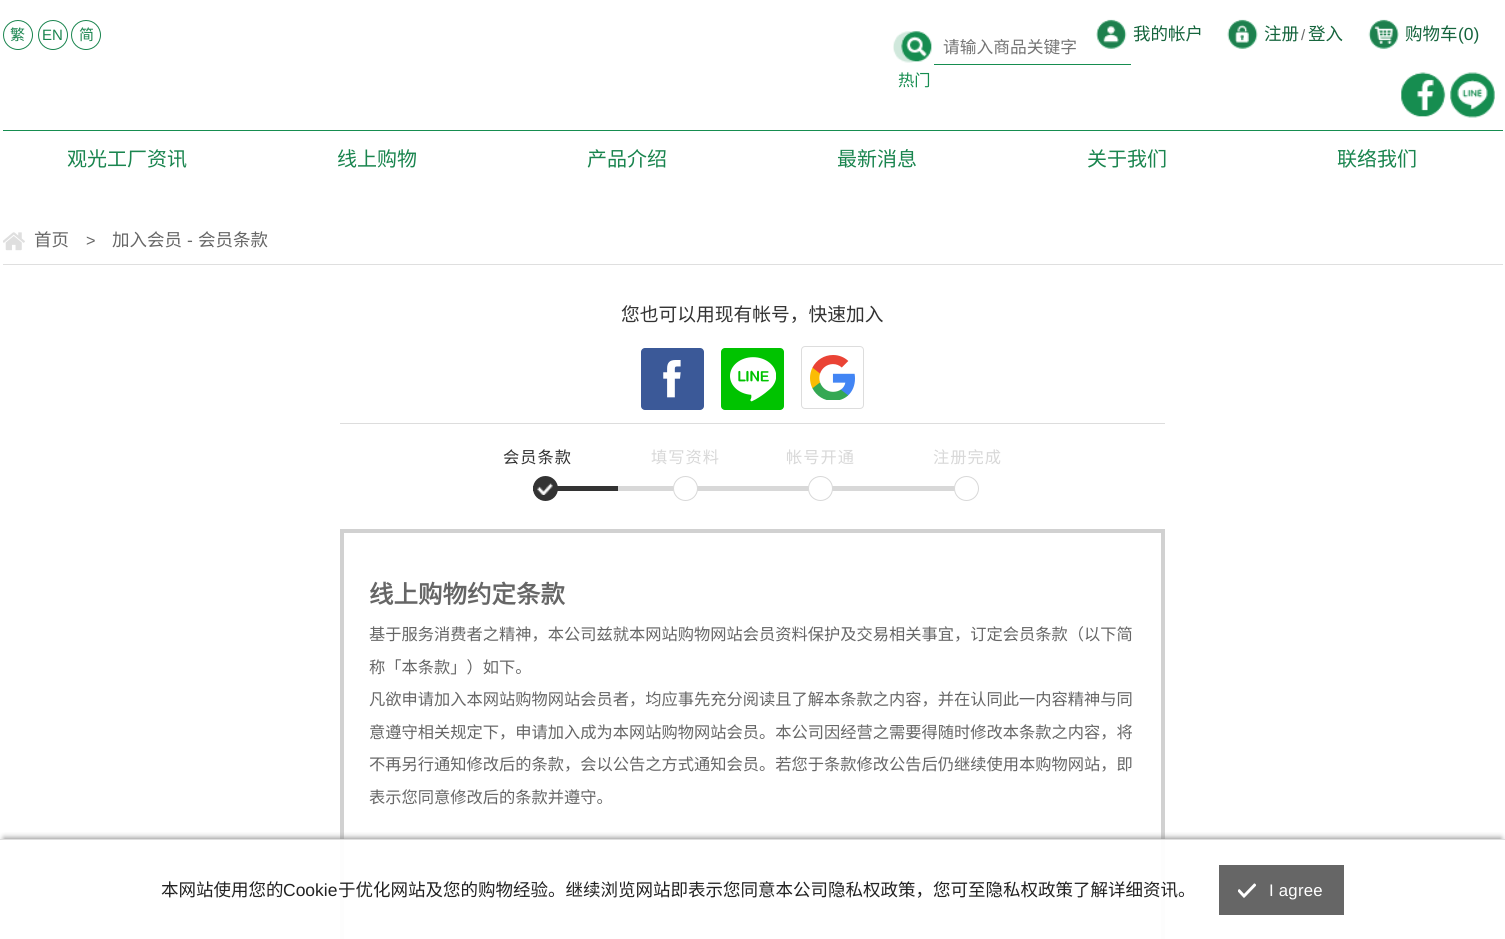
#include <cairo.h>
#include <math.h>
#include <stddef.h>

typedef struct { double x, y; const char *s; } line_t;

static void ink(cairo_t *ctx, unsigned color) {
    cairo_set_source_rgb(ctx, (color >> 16) / 255.0, (color >> 8 & 255) / 255.0, (color & 255) / 255.0);
}

static void write_spaced(cairo_t *ctx, double x, double y, const char *s, double letter, double word) {
    cairo_move_to(ctx, x, y);
    while (*s) {
        char ch[5] = {0};
        int n = 0;
        do ch[n++] = *s++; while ((*s & 0xC0) == 0x80);
        cairo_show_text(ctx, ch);
        cairo_rel_move_to(ctx, letter + word * (*ch == ' '), 0);
    }
}

static void round_path(cairo_t *ctx, double x, double y, double w, double h, double r) {
    cairo_new_sub_path(ctx);
    cairo_arc(ctx, x + w - r, y + h - r, r, 0, M_PI / 2);
    cairo_arc(ctx, x + r, y + h - r, r, M_PI / 2, M_PI);
    cairo_arc(ctx, x + r, y + r, r, M_PI, 1.5 * M_PI);
    cairo_arc(ctx, x + w - r, y + r, r, 1.5 * M_PI, 2 * M_PI);
    cairo_close_path(ctx);
}

static void blur_box(cairo_t *ctx, double x, double y, double w, double h, double r, double blur, double alpha) {
    cairo_push_group_with_content(ctx, CAIRO_CONTENT_ALPHA);
    cairo_set_operator(ctx, CAIRO_OPERATOR_SOURCE);
    for (int i = 15; i >= -15 && fmin(w, h) + blur * i / 3 > 0; i -= 2) {
        double e = blur * i / 6;
        cairo_set_source_rgba(ctx, 0, 0, 0, alpha * erfc((i - 1) / 8.5) / 2);
        round_path(ctx, x - e, y - e, w + 2 * e, h + 2 * e, fmax(0, fmin(r + e + blur * .6, fmin(w, h) / 2 + e)));
        cairo_fill(ctx);
    }
    cairo_pattern_t *soft = cairo_pop_group(ctx);
    cairo_mask(ctx, soft);
    cairo_pattern_destroy(soft);
}

static void paste(cairo_t *ctx, const char *path, double x, double y, double w, double h) {
    cairo_surface_t *image = cairo_image_surface_create_from_png(path);
    cairo_save(ctx);
    cairo_set_source_surface(ctx, image, x, y);
    cairo_rectangle(ctx, x, y, w, h);
    cairo_fill(ctx);
    cairo_restore(ctx);
    cairo_surface_destroy(image);
}

int main(void) {
    cairo_surface_t *surface = cairo_image_surface_create(CAIRO_FORMAT_RGB24, 1505, 939);
    cairo_t *ctx = cairo_create(surface);
    cairo_font_options_t *options = cairo_font_options_create();
    cairo_font_options_set_hint_metrics(options, CAIRO_HINT_METRICS_OFF);
    cairo_font_options_set_hint_style(options, CAIRO_HINT_STYLE_NONE);
    cairo_set_font_options(ctx, options);
    cairo_set_miter_limit(ctx, 4);
    ink(ctx, 0xFFFFFF);
    cairo_paint(ctx);
    cairo_arc(ctx, 18, 35, 14.5, 0, 2 * M_PI);
    ink(ctx, 0x1A854F);
    cairo_set_line_width(ctx, 1);
    cairo_stroke(ctx);
    cairo_select_font_face(ctx, "Noto Sans CJK SC", CAIRO_FONT_SLANT_NORMAL, CAIRO_FONT_WEIGHT_NORMAL);
    cairo_set_font_size(ctx, 15);
    cairo_move_to(ctx, 10, 40);
    cairo_show_text(ctx, "繁");
    cairo_new_path(ctx);
    cairo_arc(ctx, 53, 35, 14.5, 0, 2 * M_PI);
    cairo_stroke(ctx);
    cairo_select_font_face(ctx, "Liberation Sans", CAIRO_FONT_SLANT_NORMAL, CAIRO_FONT_WEIGHT_NORMAL);
    cairo_move_to(ctx, 42, 40);
    cairo_show_text(ctx, "EN");
    cairo_new_path(ctx);
    cairo_arc(ctx, 86, 35, 14.5, 0, 2 * M_PI);
    cairo_stroke(ctx);
    cairo_select_font_face(ctx, "Noto Sans CJK SC", CAIRO_FONT_SLANT_NORMAL, CAIRO_FONT_WEIGHT_NORMAL);
    cairo_move_to(ctx, 79, 40);
    cairo_show_text(ctx, "简");
    paste(ctx, "media/1.png", 1096, 19, 31, 30);
    cairo_set_font_size(ctx, 17.5);
    ink(ctx, 0x14643C);
    cairo_move_to(ctx, 1133, 40);
    cairo_show_text(ctx, "我的帐户");
    paste(ctx, "media/2.png", 1227, 19, 31, 30);
    cairo_move_to(ctx, 1264, 40);
    cairo_show_text(ctx, "注册");
    cairo_select_font_face(ctx, "Liberation Sans", CAIRO_FONT_SLANT_NORMAL, CAIRO_FONT_WEIGHT_NORMAL);
    cairo_set_font_size(ctx, 15);
    ink(ctx, 0x666666);
    cairo_move_to(ctx, 1301, 40);
    cairo_show_text(ctx, "/");
    cairo_select_font_face(ctx, "Noto Sans CJK SC", CAIRO_FONT_SLANT_NORMAL, CAIRO_FONT_WEIGHT_NORMAL);
    cairo_set_font_size(ctx, 17.5);
    ink(ctx, 0x14643C);
    cairo_move_to(ctx, 1308, 40);
    cairo_show_text(ctx, "登入");
    paste(ctx, "media/3.png", 1368, 19, 31, 30);
    cairo_move_to(ctx, 1405, 40);
    cairo_show_text(ctx, "购物车");
    cairo_select_font_face(ctx, "Liberation Sans", CAIRO_FONT_SLANT_NORMAL, CAIRO_FONT_WEIGHT_NORMAL);
    cairo_move_to(ctx, 1458, 40);
    cairo_show_text(ctx, "(0)");
    paste(ctx, "media/4.png", 893, 31, 39, 32);
    cairo_select_font_face(ctx, "Noto Sans CJK SC", CAIRO_FONT_SLANT_NORMAL, CAIRO_FONT_WEIGHT_NORMAL);
    cairo_set_font_size(ctx, 16.75);
    ink(ctx, 0x757575);
    cairo_move_to(ctx, 943, 53);
    cairo_show_text(ctx, "请输入商品关键字");
    ink(ctx, 0x168D50);
    cairo_rectangle(ctx, 934, 64, 197, 1);
    cairo_fill(ctx);
    cairo_set_font_size(ctx, 16.25);
    cairo_move_to(ctx, 898, 86);
    cairo_show_text(ctx, "热门");
    paste(ctx, "media/5.png", 1401, 72, 45, 45);
    paste(ctx, "media/6.png", 1450, 72, 45, 46);
    cairo_rectangle(ctx, 3, 130, 1500, 1);
    cairo_fill(ctx);
    cairo_set_font_size(ctx, 20);
    ink(ctx, 0x1A854F);
    {
        static const line_t items[] = {
            {67, 166, "观光工厂资讯"},
            {337, 166, "线上购物"},
            {587, 166, "产品介绍"},
            {837, 166, "最新消息"},
            {1087, 166, "关于我们"},
            {1337, 166, "联络我们"},
        };
        for (size_t i = 0; i < sizeof items / sizeof *items; i++) {
            cairo_move_to(ctx, items[i].x, items[i].y);
            cairo_show_text(ctx, items[i].s);
        }
    }
    ink(ctx, 0xDFDFDF);
    cairo_rectangle(ctx, 3, 264, 1500, 1);
    cairo_fill(ctx);
    paste(ctx, "media/7.png", 3, 232, 22, 19);
    cairo_set_font_size(ctx, 17.5);
    ink(ctx, 0x666666);
    cairo_move_to(ctx, 34, 246);
    cairo_show_text(ctx, "首页");
    cairo_select_font_face(ctx, "Liberation Sans", CAIRO_FONT_SLANT_NORMAL, CAIRO_FONT_WEIGHT_NORMAL);
    cairo_set_font_size(ctx, 16.25);
    cairo_move_to(ctx, 86, 246);
    cairo_show_text(ctx, ">");
    cairo_select_font_face(ctx, "Noto Sans CJK SC", CAIRO_FONT_SLANT_NORMAL, CAIRO_FONT_WEIGHT_NORMAL);
    cairo_set_font_size(ctx, 17.5);
    cairo_move_to(ctx, 112, 246);
    cairo_show_text(ctx, "加入会员");
    cairo_select_font_face(ctx, "Liberation Sans", CAIRO_FONT_SLANT_NORMAL, CAIRO_FONT_WEIGHT_NORMAL);
    cairo_move_to(ctx, 187, 246);
    cairo_show_text(ctx, "-");
    cairo_select_font_face(ctx, "Noto Sans CJK SC", CAIRO_FONT_SLANT_NORMAL, CAIRO_FONT_WEIGHT_NORMAL);
    cairo_move_to(ctx, 198, 246);
    cairo_show_text(ctx, "会员条款");
    cairo_set_font_size(ctx, 18.75);
    ink(ctx, 0x333333);
    cairo_move_to(ctx, 621, 321);
    cairo_show_text(ctx, "您也可以用现有帐号，快速加入");
    ink(ctx, 0xDDDDDD);
    cairo_rectangle(ctx, 340, 423, 825, 1);
    cairo_fill(ctx);
    ink(ctx, 0x3B5998);
    round_path(ctx, 641, 348, 63, 62, 4);
    cairo_fill(ctx);
    paste(ctx, "media/8.png", 663, 360, 18, 38);
    ink(ctx, 0x00C300);
    round_path(ctx, 721, 348, 63, 62, 4);
    cairo_fill(ctx);
    paste(ctx, "media/9.png", 730, 357, 46, 45);
    paste(ctx, "media/10.png", 810, 355, 45, 45);
    round_path(ctx, 801.5, 346.5, 62, 62, 3.5);
    ink(ctx, 0xDDDDDD);
    cairo_stroke(ctx);
    ink(ctx, 0xD8D8D8);
    cairo_rectangle(ctx, 618, 486, 337, 5);
    cairo_fill(ctx);
    ink(ctx, 0x333333);
    cairo_rectangle(ctx, 533, 486, 85, 5);
    cairo_fill(ctx);
    cairo_set_font_size(ctx, 16.25);
    write_spaced(ctx, 503, 463, "会员条款", 1, 0);
    cairo_new_path(ctx);
    cairo_arc(ctx, 545.5, 488.5, 12.5, 0, 2 * M_PI);
    cairo_fill(ctx);
    paste(ctx, "media/11.png", 537, 483, 16, 12);
    ink(ctx, 0xD8D8D8);
    write_spaced(ctx, 651, 463, "填写资料", 1, 0);
    ink(ctx, 0xFFFFFF);
    cairo_new_path(ctx);
    cairo_arc(ctx, 685.5, 488.5, 12, 0, 2 * M_PI);
    cairo_fill_preserve(ctx);
    ink(ctx, 0xD8D8D8);
    cairo_stroke(ctx);
    write_spaced(ctx, 786, 463, "帐号开通", 1, 0);
    ink(ctx, 0xFFFFFF);
    cairo_new_path(ctx);
    cairo_arc(ctx, 820.5, 488.5, 12, 0, 2 * M_PI);
    cairo_fill_preserve(ctx);
    ink(ctx, 0xD8D8D8);
    cairo_stroke(ctx);
    write_spaced(ctx, 933, 463, "注册完成", 1, 0);
    ink(ctx, 0xFFFFFF);
    cairo_new_path(ctx);
    cairo_arc(ctx, 966.5, 488.5, 12, 0, 2 * M_PI);
    cairo_fill_preserve(ctx);
    ink(ctx, 0xD8D8D8);
    cairo_stroke(ctx);
    cairo_rectangle(ctx, 342, 531, 821, 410);
    ink(ctx, 0xD1D1D1);
    cairo_set_line_width(ctx, 4);
    cairo_stroke(ctx);
    cairo_select_font_face(ctx, "Noto Sans CJK SC", CAIRO_FONT_SLANT_NORMAL, CAIRO_FONT_WEIGHT_BOLD);
    cairo_set_font_size(ctx, 24.5);
    ink(ctx, 0x666666);
    cairo_move_to(ctx, 369, 603);
    cairo_show_text(ctx, "线上购物约定条款");
    cairo_select_font_face(ctx, "Noto Sans CJK SC", CAIRO_FONT_SLANT_NORMAL, CAIRO_FONT_WEIGHT_NORMAL);
    cairo_set_font_size(ctx, 16.25);
    {
        static const line_t items[] = {
            {369, 640, "基于服务消费者之精神，本公司兹就本网站购物网站会员资料保护及交易相关事宜，订定会员条款（以下简"},
            {369, 673, "称「本条款」）如下。"},
            {369, 705, "凡欲申请加入本网站购物网站会员者，均应事先充分阅读且了解本条款之内容，并在认同此一内容精神与同"},
            {369, 738, "意遵守相关规定下，申请加入成为本网站购物网站会员。本公司因经营之需要得随时修改本条款之内容，将"},
            {369, 770, "不再另行通知修改后的条款，会以公告之方式通知会员。若您于条款修改公告后仍继续使用本购物网站，即"},
            {369, 803, "表示您同意修改后的条款并遵守。"},
        };
        for (size_t i = 0; i < sizeof items / sizeof *items; i++) {
            cairo_move_to(ctx, items[i].x, items[i].y);
            cairo_show_text(ctx, items[i].s);
        }
    }
    cairo_save(ctx);
    cairo_rectangle(ctx, 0, 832, 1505, 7);
    cairo_clip(ctx);
    ink(ctx, 0x8A8A8A);
    blur_box(ctx, 4, 838, 1497, 93, 0, 3, 1);
    cairo_restore(ctx);
    cairo_set_source_rgba(ctx, 1, 1, 1, 0.95);
    cairo_rectangle(ctx, 340, 840, 825, 99);
    cairo_fill(ctx);
    ink(ctx, 0xDFDFDF);
    cairo_rectangle(ctx, 0, 839, 1505, 1);
    cairo_fill(ctx);
    cairo_set_font_size(ctx, 17.5);
    ink(ctx, 0x222222);
    cairo_move_to(ctx, 161, 896);
    cairo_show_text(ctx, "本网站使用您的");
    cairo_select_font_face(ctx, "Liberation Sans", CAIRO_FONT_SLANT_NORMAL, CAIRO_FONT_WEIGHT_NORMAL);
    cairo_move_to(ctx, 283, 896);
    cairo_show_text(ctx, "Cookie");
    cairo_select_font_face(ctx, "Noto Sans CJK SC", CAIRO_FONT_SLANT_NORMAL, CAIRO_FONT_WEIGHT_NORMAL);
    cairo_move_to(ctx, 338, 896);
    cairo_show_text(ctx, "于优化网站及您的购物经验。继续浏览网站即表示您同意本公司隐私权政策，您可至隐私权政策了解详细资讯。");
    ink(ctx, 0x666666);
    cairo_rectangle(ctx, 1219, 865, 125, 50);
    cairo_fill(ctx);
    paste(ctx, "media/12.png", 1238, 883, 18, 15);
    cairo_select_font_face(ctx, "Liberation Sans", CAIRO_FONT_SLANT_NORMAL, CAIRO_FONT_WEIGHT_NORMAL);
    cairo_set_font_size(ctx, 16.75);
    ink(ctx, 0xFFFFFF);
    write_spaced(ctx, 1269, 896, "I agree", 0.25, 0);
    cairo_surface_write_to_png(surface, "image.png");
    cairo_font_options_destroy(options);
    cairo_destroy(ctx);
    cairo_surface_destroy(surface);
    return 0;
}
